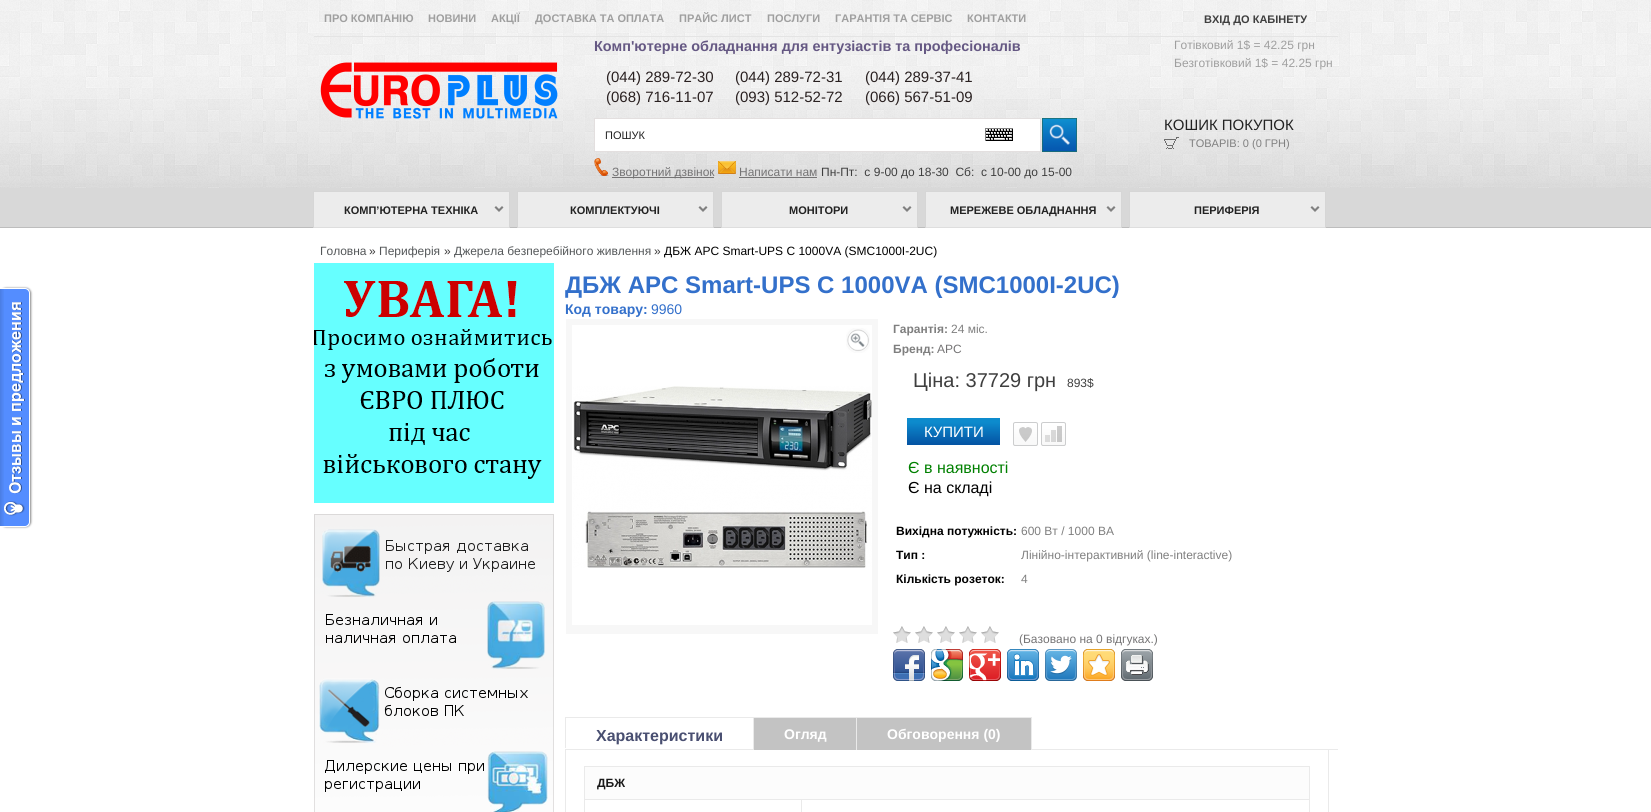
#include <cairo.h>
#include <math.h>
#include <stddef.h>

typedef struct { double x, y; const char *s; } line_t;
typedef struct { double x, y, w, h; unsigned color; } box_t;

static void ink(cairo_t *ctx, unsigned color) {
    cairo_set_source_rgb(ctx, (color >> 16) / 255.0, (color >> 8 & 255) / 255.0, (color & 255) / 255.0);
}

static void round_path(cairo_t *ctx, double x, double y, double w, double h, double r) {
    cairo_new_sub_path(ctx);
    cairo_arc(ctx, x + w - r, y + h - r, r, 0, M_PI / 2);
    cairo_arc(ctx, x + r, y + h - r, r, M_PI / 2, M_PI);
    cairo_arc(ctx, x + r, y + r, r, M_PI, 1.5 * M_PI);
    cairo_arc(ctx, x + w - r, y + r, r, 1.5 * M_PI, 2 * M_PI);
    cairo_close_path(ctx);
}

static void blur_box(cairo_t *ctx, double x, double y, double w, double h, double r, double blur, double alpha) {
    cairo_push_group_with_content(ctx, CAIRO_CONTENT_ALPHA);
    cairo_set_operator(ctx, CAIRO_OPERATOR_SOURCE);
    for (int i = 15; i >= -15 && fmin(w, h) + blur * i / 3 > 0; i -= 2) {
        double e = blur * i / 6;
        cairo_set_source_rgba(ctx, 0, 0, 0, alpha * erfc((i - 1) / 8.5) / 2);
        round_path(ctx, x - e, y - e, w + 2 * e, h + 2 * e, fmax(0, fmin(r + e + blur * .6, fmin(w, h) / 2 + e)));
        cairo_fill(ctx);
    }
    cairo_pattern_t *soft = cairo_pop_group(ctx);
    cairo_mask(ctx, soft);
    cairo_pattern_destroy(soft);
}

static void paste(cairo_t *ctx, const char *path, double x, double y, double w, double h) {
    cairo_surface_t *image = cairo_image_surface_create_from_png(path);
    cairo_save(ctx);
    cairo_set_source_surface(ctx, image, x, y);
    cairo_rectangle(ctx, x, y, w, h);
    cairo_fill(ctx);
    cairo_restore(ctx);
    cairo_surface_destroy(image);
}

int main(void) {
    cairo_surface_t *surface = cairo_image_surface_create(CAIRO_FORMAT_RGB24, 1651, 812);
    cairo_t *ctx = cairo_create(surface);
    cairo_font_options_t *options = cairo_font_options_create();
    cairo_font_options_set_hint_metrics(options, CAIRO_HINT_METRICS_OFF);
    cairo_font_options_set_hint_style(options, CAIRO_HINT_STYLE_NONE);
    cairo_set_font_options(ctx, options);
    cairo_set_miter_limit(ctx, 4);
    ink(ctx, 0xFFFFFF);
    cairo_paint(ctx);
    ink(ctx, 0x888888);
    blur_box(ctx, 1, 288, 30, 239, 5, 1, 1);
    ink(ctx, 0x548DFF);
    cairo_new_path(ctx);
    cairo_move_to(ctx, 0, 288);
    cairo_line_to(ctx, 25, 288);
    cairo_curve_to(ctx, 28, 288, 30, 290, 30, 293);
    cairo_line_to(ctx, 30, 522);
    cairo_curve_to(ctx, 30, 525, 28, 527, 25, 527);
    cairo_line_to(ctx, 0, 527);
    cairo_close_path(ctx);
    cairo_fill(ctx);
    paste(ctx, "media/1.png", 0, 289, 4, 237);
    ink(ctx, 0xFFFFFF);
    cairo_set_fill_rule(ctx, CAIRO_FILL_RULE_EVEN_ODD);
    cairo_new_path(ctx);
    cairo_move_to(ctx, 0, 288);
    cairo_line_to(ctx, 25, 288);
    cairo_curve_to(ctx, 28, 288, 30, 290, 30, 293);
    cairo_line_to(ctx, 30, 522);
    cairo_curve_to(ctx, 30, 525, 28, 527, 25, 527);
    cairo_line_to(ctx, 0, 527);
    cairo_close_path(ctx);
    cairo_move_to(ctx, 0, 289);
    cairo_line_to(ctx, 25, 289);
    cairo_curve_to(ctx, 27, 289, 29, 291, 29, 293);
    cairo_line_to(ctx, 29, 522);
    cairo_curve_to(ctx, 29, 524, 27, 526, 25, 526);
    cairo_line_to(ctx, 0, 526);
    cairo_close_path(ctx);
    cairo_fill(ctx);
    paste(ctx, "media/2.png", 4, 302, 21, 214);
    {
        static const box_t items[] = {
            {0, 188, 1651, 39, 0xD8D8D8},
            {1130, 192, 195, 35, 0xECECEC},
            {926, 192, 195, 35, 0xECECEC},
            {722, 192, 195, 35, 0xECECEC},
            {518, 192, 195, 35, 0xECECEC},
            {314, 192, 195, 35, 0xECECEC},
        };
        for (size_t i = 0; i < sizeof items / sizeof *items; i++) {
            ink(ctx, items[i].color);
            cairo_rectangle(ctx, items[i].x, items[i].y, items[i].w, items[i].h);
            cairo_fill(ctx);
        }
    }
    paste(ctx, "media/3.png", 0, 0, 1651, 188);
    {
        static const box_t items[] = {
            {0, 227, 1651, 1, 0xBDBDBD},
            {1129, 227, 197, 1, 0xDEDEDE},
            {925, 227, 197, 1, 0xDEDEDE},
            {721, 227, 197, 1, 0xDEDEDE},
            {517, 227, 197, 1, 0xDEDEDE},
            {313, 227, 197, 1, 0xDEDEDE},
            {314, 36, 1024, 1, 0xE4E4E4},
        };
        for (size_t i = 0; i < sizeof items / sizeof *items; i++) {
            ink(ctx, items[i].color);
            cairo_rectangle(ctx, items[i].x, items[i].y, items[i].w, items[i].h);
            cairo_fill(ctx);
        }
    }
    cairo_select_font_face(ctx, "Liberation Sans", CAIRO_FONT_SLANT_NORMAL, CAIRO_FONT_WEIGHT_BOLD);
    cairo_set_font_size(ctx, 11);
    ink(ctx, 0x9F9F9F);
    {
        static const line_t items[] = {
            {324, 22, "ПРО КОМПАНІЮ"},
            {428, 22, "НОВИНИ"},
            {491, 22, "АКЦІЇ"},
            {535, 22, "ДОСТАВКА ТА ОПЛАТА"},
            {679, 22, "ПРАЙС ЛИСТ"},
            {767, 22, "ПОСЛУГИ"},
            {835, 22, "ГАРАНТІЯ ТА СЕРВІС"},
            {967, 22, "КОНТАКТИ"},
        };
        for (size_t i = 0; i < sizeof items / sizeof *items; i++) {
            cairo_move_to(ctx, items[i].x, items[i].y);
            cairo_show_text(ctx, items[i].s);
        }
    }
    ink(ctx, 0x3F3F3F);
    cairo_move_to(ctx, 1204, 23);
    cairo_show_text(ctx, "ВХІД ДО КАБІНЕТУ");
    cairo_set_font_size(ctx, 14.4);
    ink(ctx, 0x655883);
    cairo_move_to(ctx, 594, 51);
    cairo_show_text(ctx, "Комп'ютерне обладнання для ентузіастів та професіоналів");
    cairo_select_font_face(ctx, "Liberation Sans", CAIRO_FONT_SLANT_NORMAL, CAIRO_FONT_WEIGHT_NORMAL);
    cairo_set_font_size(ctx, 12);
    ink(ctx, 0x9F9F9F);
    cairo_move_to(ctx, 1174, 49);
    cairo_show_text(ctx, "Готівковий 1$ = 42.25 грн");
    cairo_move_to(ctx, 1174, 67);
    cairo_show_text(ctx, "Безготівковий 1$ = 42.25 грн");
    paste(ctx, "media/4.png", 320, 62, 238, 57);
    cairo_set_font_size(ctx, 15);
    ink(ctx, 0x292020);
    {
        static const line_t items[] = {
            {606, 82, "(044) 289-72-30"},
            {735, 82, "(044) 289-72-31"},
            {865, 82, "(044) 289-37-41"},
            {606, 102, "(068) 716-11-07"},
            {735, 102, "(093) 512-52-72"},
            {865, 102, "(066) 567-51-09"},
        };
        for (size_t i = 0; i < sizeof items / sizeof *items; i++) {
            cairo_move_to(ctx, items[i].x, items[i].y);
            cairo_show_text(ctx, items[i].s);
        }
    }
    ink(ctx, 0xFFFFFF);
    cairo_rectangle(ctx, 594.5, 118.5, 446, 33);
    cairo_fill_preserve(ctx);
    ink(ctx, 0xE3DFDF);
    cairo_set_line_width(ctx, 1);
    cairo_stroke(ctx);
    cairo_set_font_size(ctx, 11);
    ink(ctx, 0x222222);
    cairo_move_to(ctx, 605, 139);
    cairo_show_text(ctx, "ПОШУК");
    paste(ctx, "media/5.png", 985, 128, 28, 13);
    paste(ctx, "media/6.png", 1042, 118, 35, 34);
    cairo_set_font_size(ctx, 15);
    cairo_move_to(ctx, 1164, 130);
    cairo_show_text(ctx, "КОШИК ПОКУПОК");
    paste(ctx, "media/7.png", 1164, 137, 15, 12);
    cairo_set_font_size(ctx, 11);
    ink(ctx, 0x7F7F7F);
    cairo_move_to(ctx, 1189, 147);
    cairo_show_text(ctx, "ТОВАРІВ: 0 (0 ГРН)");
    paste(ctx, "media/8.png", 594, 158, 15, 18);
    ink(ctx, 0x757475);
    cairo_rectangle(ctx, 612, 177, 102, 1);
    cairo_fill(ctx);
    cairo_set_font_size(ctx, 12);
    cairo_move_to(ctx, 612, 176);
    cairo_show_text(ctx, "Зворотний дзвінок");
    paste(ctx, "media/9.png", 718, 161, 18, 13);
    cairo_move_to(ctx, 739, 176);
    cairo_show_text(ctx, "Написати нам");
    cairo_rectangle(ctx, 739, 177, 78, 1);
    cairo_fill(ctx);
    ink(ctx, 0x3F3F3F);
    cairo_move_to(ctx, 821, 176);
    cairo_show_text(ctx, "Пн-Пт:  с 9-00 до 18-30  Сб:  с 10-00 до 15-00");
    paste(ctx, "media/10.png", 494, 206, 10, 6);
    cairo_save(ctx);
    cairo_set_fill_rule(ctx, CAIRO_FILL_RULE_WINDING);
    cairo_rectangle(ctx, 306, 191, 204, 37);
    cairo_clip(ctx);
    cairo_rectangle(ctx, 313.5, 191.5, 196, 37);
    ink(ctx, 0xD6D6D6);
    cairo_stroke(ctx);
    cairo_restore(ctx);
    cairo_select_font_face(ctx, "Liberation Sans", CAIRO_FONT_SLANT_NORMAL, CAIRO_FONT_WEIGHT_BOLD);
    cairo_set_font_size(ctx, 11);
    ink(ctx, 0x222222);
    cairo_move_to(ctx, 344, 214);
    cairo_show_text(ctx, "КОМП’ЮТЕРНА ТЕХНІКА");
    paste(ctx, "media/10.png", 698, 206, 10, 6);
    cairo_save(ctx);
    cairo_set_fill_rule(ctx, CAIRO_FILL_RULE_WINDING);
    cairo_rectangle(ctx, 510, 191, 204, 37);
    cairo_clip(ctx);
    cairo_rectangle(ctx, 517.5, 191.5, 196, 37);
    ink(ctx, 0xD6D6D6);
    cairo_stroke(ctx);
    cairo_restore(ctx);
    cairo_move_to(ctx, 570, 214);
    cairo_show_text(ctx, "КОМПЛЕКТУЮЧІ");
    paste(ctx, "media/10.png", 902, 206, 10, 6);
    cairo_save(ctx);
    cairo_set_fill_rule(ctx, CAIRO_FILL_RULE_WINDING);
    cairo_rectangle(ctx, 714, 191, 204, 37);
    cairo_clip(ctx);
    cairo_rectangle(ctx, 721.5, 191.5, 196, 37);
    ink(ctx, 0xD6D6D6);
    cairo_stroke(ctx);
    cairo_restore(ctx);
    cairo_move_to(ctx, 789, 214);
    cairo_show_text(ctx, "МОНІТОРИ");
    paste(ctx, "media/10.png", 1106, 206, 10, 6);
    cairo_save(ctx);
    cairo_set_fill_rule(ctx, CAIRO_FILL_RULE_WINDING);
    cairo_rectangle(ctx, 918, 191, 204, 37);
    cairo_clip(ctx);
    cairo_rectangle(ctx, 925.5, 191.5, 196, 37);
    ink(ctx, 0xD6D6D6);
    cairo_stroke(ctx);
    cairo_restore(ctx);
    cairo_move_to(ctx, 950, 214);
    cairo_show_text(ctx, "МЕРЕЖЕВЕ ОБЛАДНАННЯ");
    paste(ctx, "media/10.png", 1310, 206, 10, 6);
    cairo_save(ctx);
    cairo_set_fill_rule(ctx, CAIRO_FILL_RULE_WINDING);
    cairo_rectangle(ctx, 1122, 191, 204, 37);
    cairo_clip(ctx);
    cairo_rectangle(ctx, 1129.5, 191.5, 196, 37);
    ink(ctx, 0xD6D6D6);
    cairo_stroke(ctx);
    cairo_restore(ctx);
    cairo_move_to(ctx, 1194, 214);
    cairo_show_text(ctx, "ПЕРИФЕРІЯ");
    cairo_select_font_face(ctx, "Liberation Sans", CAIRO_FONT_SLANT_NORMAL, CAIRO_FONT_WEIGHT_NORMAL);
    cairo_set_font_size(ctx, 12);
    ink(ctx, 0x545759);
    cairo_move_to(ctx, 320, 255);
    cairo_show_text(ctx, "Головна");
    ink(ctx, 0x383737);
    cairo_move_to(ctx, 369, 255);
    cairo_show_text(ctx, "»");
    ink(ctx, 0x545759);
    cairo_move_to(ctx, 379, 255);
    cairo_show_text(ctx, "Периферія");
    ink(ctx, 0x383737);
    cairo_move_to(ctx, 444, 255);
    cairo_show_text(ctx, "»");
    ink(ctx, 0x545759);
    cairo_move_to(ctx, 454, 255);
    cairo_show_text(ctx, "Джерела безперебійного живлення");
    ink(ctx, 0x383737);
    cairo_move_to(ctx, 654, 255);
    cairo_show_text(ctx, "»");
    ink(ctx, 0x000000);
    cairo_move_to(ctx, 664, 255);
    cairo_show_text(ctx, "ДБЖ APC Smart-UPS C 1000VA (SMC1000I-2UC)");
    cairo_save(ctx);
    cairo_set_fill_rule(ctx, CAIRO_FILL_RULE_WINDING);
    cairo_rectangle(ctx, 565, 270, 773, 427);
    cairo_clip(ctx);
    cairo_select_font_face(ctx, "Liberation Sans", CAIRO_FONT_SLANT_NORMAL, CAIRO_FONT_WEIGHT_BOLD);
    cairo_set_font_size(ctx, 24);
    ink(ctx, 0x3370CB);
    cairo_move_to(ctx, 565, 293);
    cairo_show_text(ctx, "ДБЖ APC Smart-UPS C 1000VA (SMC1000I-2UC)");
    cairo_restore(ctx);
    cairo_select_font_face(ctx, "Liberation Sans", CAIRO_FONT_SLANT_NORMAL, CAIRO_FONT_WEIGHT_BOLD);
    cairo_set_font_size(ctx, 14);
    ink(ctx, 0x3370CB);
    cairo_move_to(ctx, 565, 314);
    cairo_show_text(ctx, "Код товару:");
    cairo_select_font_face(ctx, "Liberation Sans", CAIRO_FONT_SLANT_NORMAL, CAIRO_FONT_WEIGHT_NORMAL);
    cairo_move_to(ctx, 651, 314);
    cairo_show_text(ctx, "9960");
    ink(ctx, 0xF7F7F7);
    cairo_rectangle(ctx, 566, 319, 312, 315);
    cairo_fill(ctx);
    ink(ctx, 0xFFFFFF);
    cairo_rectangle(ctx, 572, 325, 300, 300);
    cairo_fill(ctx);
    paste(ctx, "media/11.png", 573, 386, 299, 182);
    paste(ctx, "media/12.png", 846, 328, 24, 25);
    cairo_select_font_face(ctx, "Liberation Sans", CAIRO_FONT_SLANT_NORMAL, CAIRO_FONT_WEIGHT_BOLD);
    cairo_set_font_size(ctx, 12);
    ink(ctx, 0x7F7F7F);
    cairo_move_to(ctx, 893, 333);
    cairo_show_text(ctx, "Гарантія:");
    cairo_select_font_face(ctx, "Liberation Sans", CAIRO_FONT_SLANT_NORMAL, CAIRO_FONT_WEIGHT_NORMAL);
    cairo_move_to(ctx, 951, 333);
    cairo_show_text(ctx, "24 міс.");
    cairo_select_font_face(ctx, "Liberation Sans", CAIRO_FONT_SLANT_NORMAL, CAIRO_FONT_WEIGHT_BOLD);
    cairo_move_to(ctx, 893, 353);
    cairo_show_text(ctx, "Бренд:");
    cairo_select_font_face(ctx, "Liberation Sans", CAIRO_FONT_SLANT_NORMAL, CAIRO_FONT_WEIGHT_NORMAL);
    ink(ctx, 0x757475);
    cairo_move_to(ctx, 937, 353);
    cairo_show_text(ctx, "APC");
    cairo_set_font_size(ctx, 20);
    ink(ctx, 0x3F3F3F);
    cairo_move_to(ctx, 913, 387);
    cairo_show_text(ctx, "Ціна: 37729 грн");
    cairo_set_font_size(ctx, 12);
    cairo_move_to(ctx, 1067, 387);
    cairo_show_text(ctx, "893$");
    paste(ctx, "media/13.png", 907, 418, 93, 27);
    cairo_set_font_size(ctx, 15);
    ink(ctx, 0xFFFFFF);
    cairo_move_to(ctx, 924, 437);
    cairo_show_text(ctx, "КУПИТИ");
    cairo_set_font_size(ctx, 16);
    ink(ctx, 0x008000);
    cairo_move_to(ctx, 908, 473);
    cairo_show_text(ctx, "Є в наявності");
    ink(ctx, 0x000000);
    cairo_move_to(ctx, 908, 493);
    cairo_show_text(ctx, "Є на складі");
    paste(ctx, "media/14.png", 1013, 422, 25, 24);
    paste(ctx, "media/15.png", 1041, 422, 25, 24);
    cairo_select_font_face(ctx, "Liberation Sans", CAIRO_FONT_SLANT_NORMAL, CAIRO_FONT_WEIGHT_BOLD);
    cairo_set_font_size(ctx, 12);
    cairo_move_to(ctx, 896, 535);
    cairo_show_text(ctx, "Вихідна потужність:");
    cairo_select_font_face(ctx, "Liberation Sans", CAIRO_FONT_SLANT_NORMAL, CAIRO_FONT_WEIGHT_NORMAL);
    ink(ctx, 0x7F7F7F);
    cairo_move_to(ctx, 1021, 535);
    cairo_show_text(ctx, "600 Вт / 1000 ВА");
    cairo_select_font_face(ctx, "Liberation Sans", CAIRO_FONT_SLANT_NORMAL, CAIRO_FONT_WEIGHT_BOLD);
    ink(ctx, 0x000000);
    cairo_move_to(ctx, 896, 559);
    cairo_show_text(ctx, "Тип :");
    cairo_select_font_face(ctx, "Liberation Sans", CAIRO_FONT_SLANT_NORMAL, CAIRO_FONT_WEIGHT_NORMAL);
    ink(ctx, 0x7F7F7F);
    cairo_move_to(ctx, 1021, 559);
    cairo_show_text(ctx, "Лінійно-інтерактивний (line-interactive)");
    cairo_select_font_face(ctx, "Liberation Sans", CAIRO_FONT_SLANT_NORMAL, CAIRO_FONT_WEIGHT_BOLD);
    ink(ctx, 0x000000);
    cairo_move_to(ctx, 896, 583);
    cairo_show_text(ctx, "Кількість розеток:");
    cairo_select_font_face(ctx, "Liberation Sans", CAIRO_FONT_SLANT_NORMAL, CAIRO_FONT_WEIGHT_NORMAL);
    ink(ctx, 0x7F7F7F);
    cairo_move_to(ctx, 1021, 583);
    cairo_show_text(ctx, "4");
    paste(ctx, "media/16.png", 893, 626, 106, 17);
    ink(ctx, 0x757475);
    cairo_move_to(ctx, 1019, 643);
    cairo_show_text(ctx, "(Базовано на 0 відгуках.)");
    paste(ctx, "media/17.png", 893, 649, 32, 32);
    paste(ctx, "media/18.png", 931, 649, 32, 32);
    paste(ctx, "media/19.png", 969, 649, 32, 32);
    paste(ctx, "media/20.png", 1007, 649, 32, 32);
    paste(ctx, "media/21.png", 1045, 649, 32, 32);
    paste(ctx, "media/22.png", 1083, 649, 32, 32);
    paste(ctx, "media/23.png", 1121, 649, 32, 32);
    {
        static const box_t items[] = {
            {565, 749, 773, 1, 0xEAEAEA},
            {565, 717, 467, 1, 0xEAEAEA},
            {565, 717, 1, 31, 0xEAEAEA},
        };
        for (size_t i = 0; i < sizeof items / sizeof *items; i++) {
            ink(ctx, items[i].color);
            cairo_rectangle(ctx, items[i].x, items[i].y, items[i].w, items[i].h);
            cairo_fill(ctx);
        }
    }
    cairo_select_font_face(ctx, "Liberation Sans", CAIRO_FONT_SLANT_NORMAL, CAIRO_FONT_WEIGHT_BOLD);
    cairo_set_font_size(ctx, 16);
    ink(ctx, 0x494F71);
    cairo_move_to(ctx, 596, 741);
    cairo_show_text(ctx, "Характеристики");
    ink(ctx, 0xC3C3C3);
    cairo_rectangle(ctx, 754, 718, 102, 32);
    cairo_fill(ctx);
    ink(ctx, 0xEAEAEA);
    cairo_rectangle(ctx, 753, 717, 1, 33);
    cairo_fill(ctx);
    cairo_set_font_size(ctx, 14);
    ink(ctx, 0xFFFFFF);
    cairo_move_to(ctx, 784, 739);
    cairo_show_text(ctx, "Огляд");
    {
        static const box_t items[] = {
            {857, 718, 174, 32, 0xC3C3C3},
            {1031, 717, 1, 33, 0xEAEAEA},
            {856, 717, 1, 33, 0xEAEAEA},
        };
        for (size_t i = 0; i < sizeof items / sizeof *items; i++) {
            ink(ctx, items[i].color);
            cairo_rectangle(ctx, items[i].x, items[i].y, items[i].w, items[i].h);
            cairo_fill(ctx);
        }
    }
    ink(ctx, 0xFFFFFF);
    cairo_move_to(ctx, 887, 739);
    cairo_show_text(ctx, "Обговорення (0)");
    cairo_save(ctx);
    cairo_set_fill_rule(ctx, CAIRO_FILL_RULE_WINDING);
    cairo_rectangle(ctx, 565, 750, 773, 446);
    cairo_clip(ctx);
    cairo_rectangle(ctx, 565.5, 749.5, 763, 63);
    ink(ctx, 0xEAEAEA);
    cairo_stroke(ctx);
    cairo_restore(ctx);
    {
        static const box_t items[] = {
            {584, 766, 726, 1, 0xEAEAEA},
            {584, 766, 1, 46, 0xEAEAEA},
            {801, 799, 509, 1, 0xEAEAEA},
            {801, 799, 1, 13, 0xEAEAEA},
            {584, 799, 218, 1, 0xEAEAEA},
            {1309, 766, 1, 46, 0xEAEAEA},
            {585, 767, 724, 32, 0xFCFCFC},
        };
        for (size_t i = 0; i < sizeof items / sizeof *items; i++) {
            ink(ctx, items[i].color);
            cairo_rectangle(ctx, items[i].x, items[i].y, items[i].w, items[i].h);
            cairo_fill(ctx);
        }
    }
    cairo_set_font_size(ctx, 12);
    ink(ctx, 0x191919);
    cairo_move_to(ctx, 597, 787);
    cairo_show_text(ctx, "ДБЖ");
    paste(ctx, "media/24.png", 314, 263, 240, 240);
    paste(ctx, "media/25.png", 314, 514, 240, 298);
    cairo_surface_write_to_png(surface, "image.png");
    cairo_font_options_destroy(options);
    cairo_destroy(ctx);
    cairo_surface_destroy(surface);
    return 0;
}
